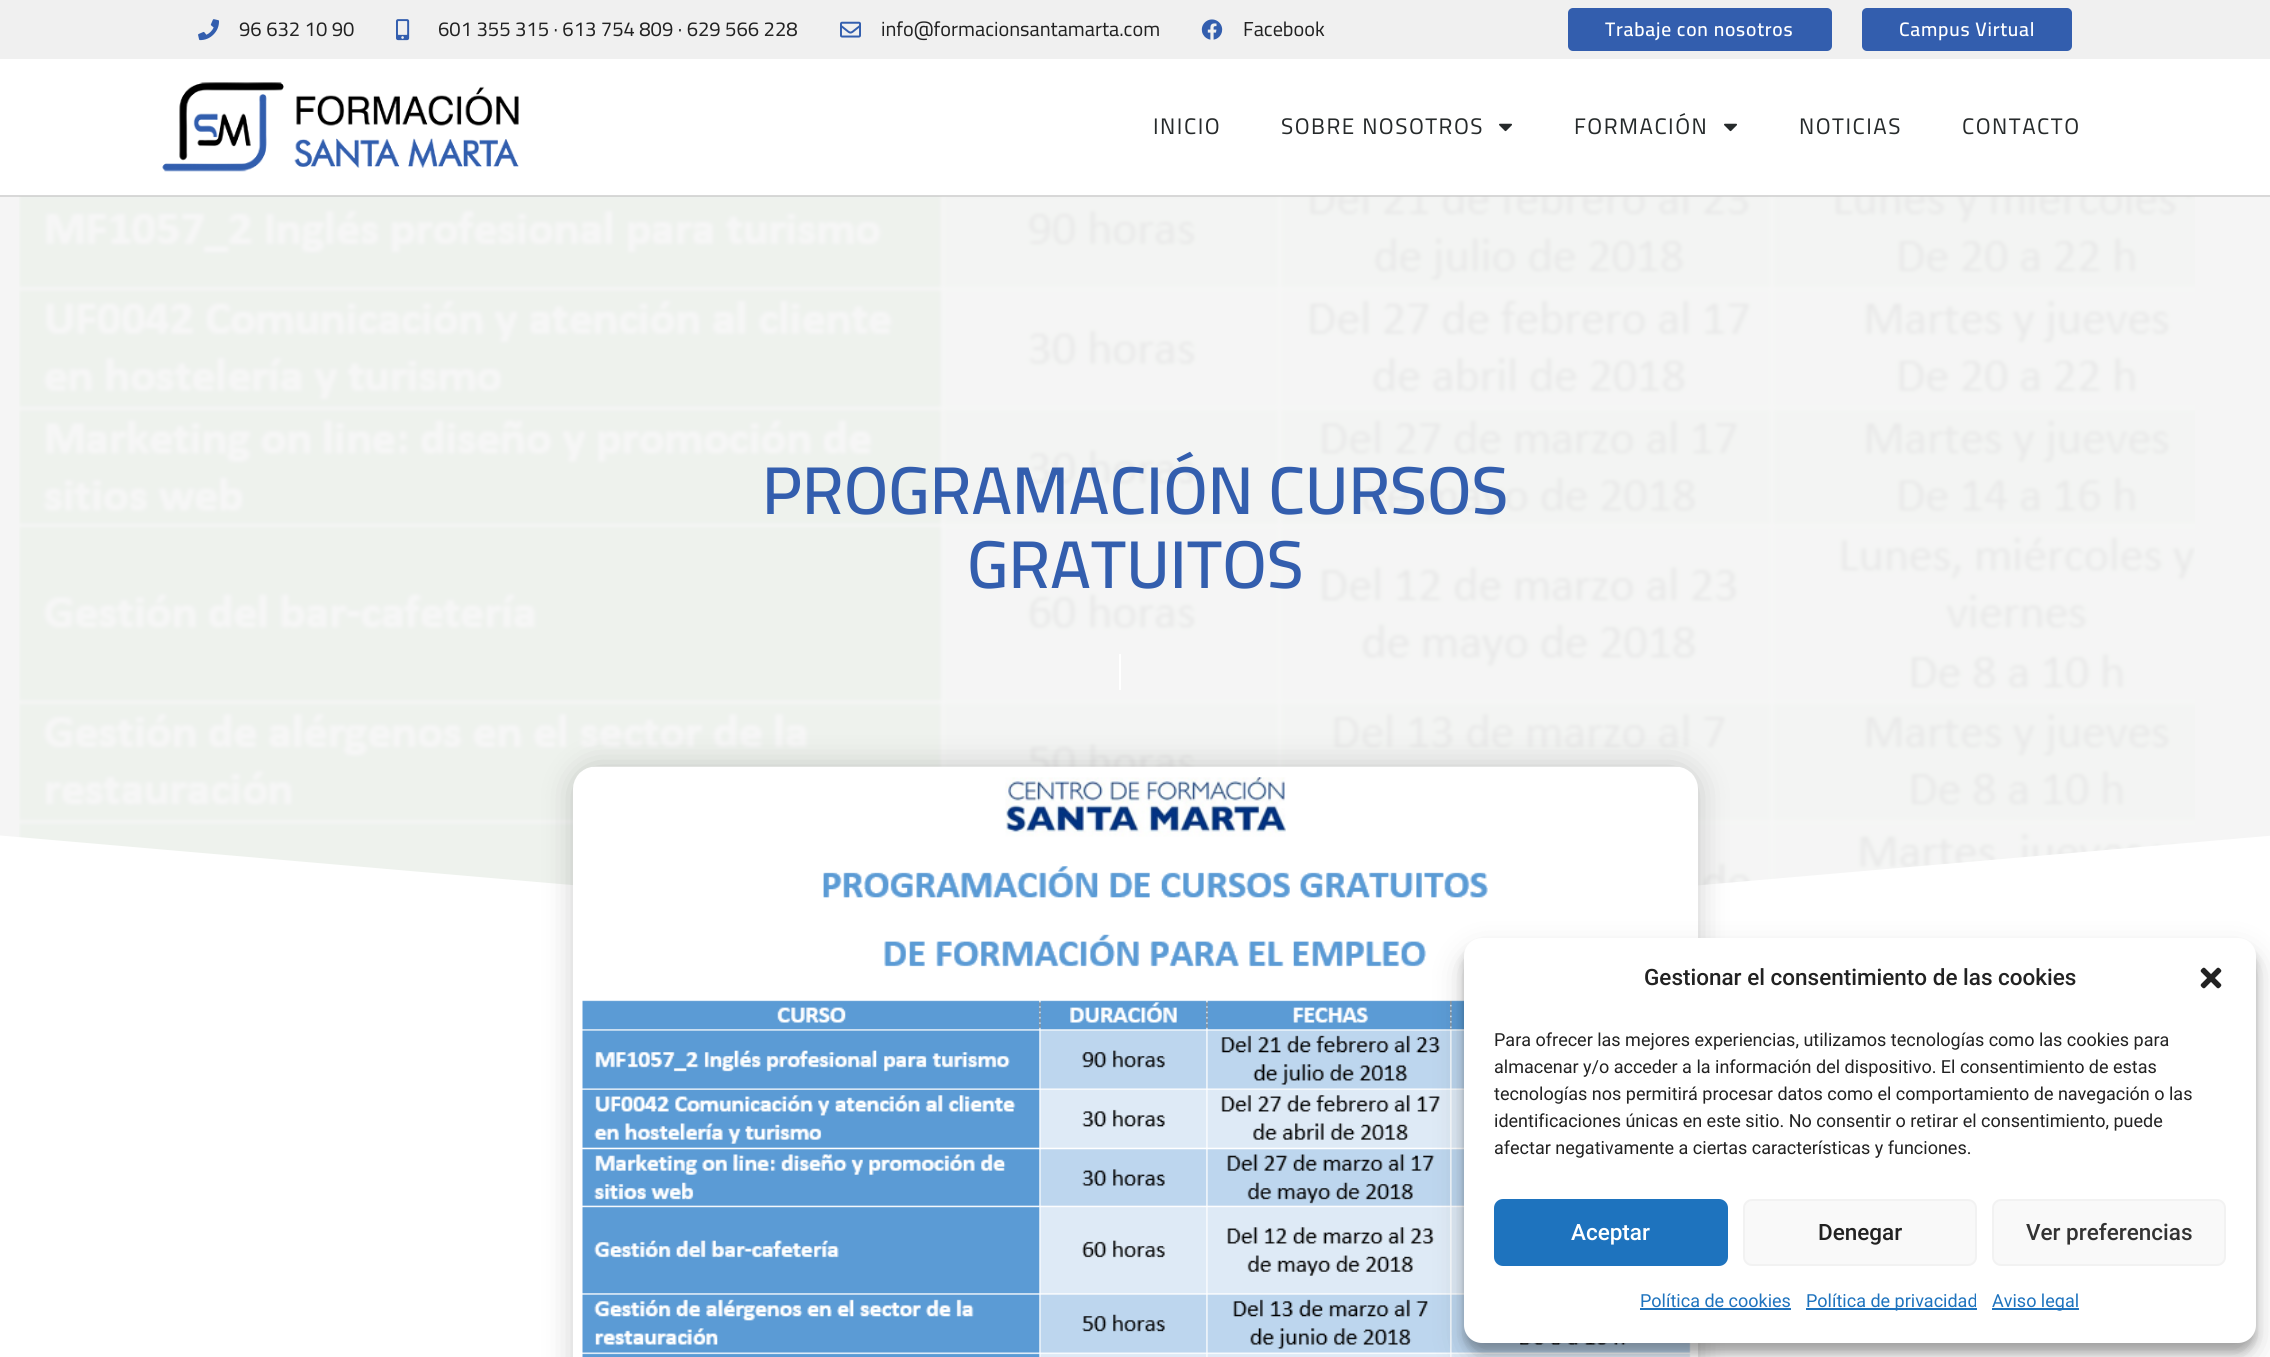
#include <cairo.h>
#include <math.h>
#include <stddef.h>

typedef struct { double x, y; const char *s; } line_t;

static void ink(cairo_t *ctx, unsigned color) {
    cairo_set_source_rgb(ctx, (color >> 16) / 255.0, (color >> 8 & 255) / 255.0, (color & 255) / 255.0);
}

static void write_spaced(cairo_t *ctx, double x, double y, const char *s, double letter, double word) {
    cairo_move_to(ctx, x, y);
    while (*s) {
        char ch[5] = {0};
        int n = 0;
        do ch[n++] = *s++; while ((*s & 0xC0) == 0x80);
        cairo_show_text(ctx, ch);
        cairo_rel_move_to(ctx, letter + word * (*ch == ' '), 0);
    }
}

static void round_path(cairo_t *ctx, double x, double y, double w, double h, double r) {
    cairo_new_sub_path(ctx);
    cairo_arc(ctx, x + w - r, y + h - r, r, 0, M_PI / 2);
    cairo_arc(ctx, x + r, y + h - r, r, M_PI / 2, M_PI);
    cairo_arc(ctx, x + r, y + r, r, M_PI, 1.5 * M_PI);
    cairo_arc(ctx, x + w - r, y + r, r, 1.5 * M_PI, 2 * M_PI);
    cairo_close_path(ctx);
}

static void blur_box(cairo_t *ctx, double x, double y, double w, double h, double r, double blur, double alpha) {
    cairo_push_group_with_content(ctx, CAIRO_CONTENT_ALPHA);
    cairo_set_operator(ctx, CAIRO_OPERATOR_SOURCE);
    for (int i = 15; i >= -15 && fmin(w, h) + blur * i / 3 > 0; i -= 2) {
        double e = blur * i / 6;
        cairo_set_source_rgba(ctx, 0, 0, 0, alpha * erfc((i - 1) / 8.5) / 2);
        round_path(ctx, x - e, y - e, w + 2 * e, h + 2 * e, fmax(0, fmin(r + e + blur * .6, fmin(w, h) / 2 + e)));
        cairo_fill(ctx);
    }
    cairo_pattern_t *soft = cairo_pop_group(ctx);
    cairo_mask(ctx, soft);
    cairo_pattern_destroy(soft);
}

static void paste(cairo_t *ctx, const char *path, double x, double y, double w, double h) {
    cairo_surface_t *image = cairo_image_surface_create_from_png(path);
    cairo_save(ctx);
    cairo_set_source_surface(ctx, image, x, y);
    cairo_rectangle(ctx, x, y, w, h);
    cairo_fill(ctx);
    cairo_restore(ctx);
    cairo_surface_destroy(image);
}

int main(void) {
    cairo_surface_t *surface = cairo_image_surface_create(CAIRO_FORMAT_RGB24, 2270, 1357);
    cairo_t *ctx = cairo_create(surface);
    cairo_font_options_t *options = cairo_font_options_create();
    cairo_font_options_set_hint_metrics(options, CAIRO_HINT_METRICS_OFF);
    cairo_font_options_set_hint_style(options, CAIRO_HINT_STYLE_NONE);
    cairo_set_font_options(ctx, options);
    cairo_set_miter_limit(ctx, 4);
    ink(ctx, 0xFFFFFF);
    cairo_paint(ctx);
    ink(ctx, 0xF0F0F0);
    cairo_rectangle(ctx, 0, 0, 2270, 59);
    cairo_fill(ctx);
    paste(ctx, "media/1.png", 198, 19, 21, 22);
    cairo_select_font_face(ctx, "Cairo", CAIRO_FONT_SLANT_NORMAL, CAIRO_FONT_WEIGHT_NORMAL);
    cairo_set_font_size(ctx, 20.25);
    ink(ctx, 0x222222);
    cairo_move_to(ctx, 239, 36);
    cairo_show_text(ctx, "96 632 10 90");
    paste(ctx, "media/2.png", 396, 19, 14, 22);
    cairo_move_to(ctx, 438, 36);
    cairo_show_text(ctx, "601 355 315 · 613 754 809 · 629 566 228");
    paste(ctx, "media/3.png", 840, 21, 21, 17);
    cairo_move_to(ctx, 881, 36);
    cairo_show_text(ctx, "info@formacionsantamarta.com");
    paste(ctx, "media/4.png", 1201, 19, 22, 21);
    cairo_move_to(ctx, 1243, 36);
    cairo_show_text(ctx, "Facebook");
    ink(ctx, 0x335EAE);
    round_path(ctx, 1568, 8, 264, 43, 5);
    cairo_fill(ctx);
    cairo_select_font_face(ctx, "Cairo SemiBold", CAIRO_FONT_SLANT_NORMAL, CAIRO_FONT_WEIGHT_NORMAL);
    cairo_set_font_size(ctx, 19.5);
    ink(ctx, 0xFFFFFF);
    write_spaced(ctx, 1605, 36, "Trabaje con nosotros", 0.75, 0);
    ink(ctx, 0x335EAE);
    round_path(ctx, 1862, 8, 210, 43, 5);
    cairo_fill(ctx);
    ink(ctx, 0xFFFFFF);
    write_spaced(ctx, 1899, 36, "Campus Virtual", 0.75, 0);
    ink(ctx, 0xD8D8D8);
    cairo_rectangle(ctx, 0, 195, 2270, 2);
    cairo_fill(ctx);
    paste(ctx, "media/5.png", 162, 82, 357, 90);
    cairo_select_font_face(ctx, "Cairo", CAIRO_FONT_SLANT_NORMAL, CAIRO_FONT_WEIGHT_NORMAL);
    cairo_set_font_size(ctx, 22.5);
    ink(ctx, 0x262A2B);
    write_spaced(ctx, 1153, 134, "INICIO", 1.5, 0);
    write_spaced(ctx, 1281, 134, "SOBRE NOSOTROS", 1.5, 0);
    paste(ctx, "media/6.png", 1499, 123, 13, 9);
    write_spaced(ctx, 1574, 134, "FORMACIÓN", 1.5, 0);
    paste(ctx, "media/6.png", 1724, 123, 13, 9);
    write_spaced(ctx, 1799, 134, "NOTICIAS", 1.5, 0);
    write_spaced(ctx, 1962, 134, "CONTACTO", 1.5, 0);
    ink(ctx, 0xF5F5F5);
    cairo_rectangle(ctx, 0, 197, 2270, 689);
    cairo_fill(ctx);
    paste(ctx, "media/7.png", 19, 196, 2176, 690);
    cairo_select_font_face(ctx, "Cairo SemiBold", CAIRO_FONT_SLANT_NORMAL, CAIRO_FONT_WEIGHT_NORMAL);
    cairo_set_font_size(ctx, 67.5);
    ink(ctx, 0x335EAE);
    cairo_move_to(ctx, 762, 514);
    cairo_show_text(ctx, "PROGRAMACIÓN CURSOS");
    cairo_move_to(ctx, 967, 588);
    cairo_show_text(ctx, "GRATUITOS");
    ink(ctx, 0xFFFFFF);
    cairo_rectangle(ctx, 1119, 654, 2, 36);
    cairo_fill(ctx);
    cairo_new_path(ctx);
    cairo_move_to(ctx, 1137, 934);
    cairo_line_to(ctx, -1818, 678);
    cairo_line_to(ctx, -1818, 948);
    cairo_line_to(ctx, 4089, 948);
    cairo_line_to(ctx, 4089, 678);
    cairo_close_path(ctx);
    cairo_fill(ctx);
    ink(ctx, 0x000000);
    blur_box(ctx, 573, 767, 1125, 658, 23, 15, 0.2);
    paste(ctx, "media/8.png", 573, 766, 1125, 591);
    blur_box(ctx, 1464, 947, 792, 405, 18, 4.5, 0.23);
    blur_box(ctx, 1464, 953, 792, 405, 18, 15, 0.19);
    ink(ctx, 0xFFFFFF);
    round_path(ctx, 1464, 938, 792, 405, 18);
    cairo_fill(ctx);
    cairo_select_font_face(ctx, "Roboto Medium", CAIRO_FONT_SLANT_NORMAL, CAIRO_FONT_WEIGHT_NORMAL);
    cairo_set_font_size(ctx, 22.5);
    ink(ctx, 0x222222);
    cairo_move_to(ctx, 1644, 985);
    cairo_show_text(ctx, "Gestionar el consentimiento de las cookies");
    paste(ctx, "media/9.png", 2200, 967, 22, 22);
    cairo_select_font_face(ctx, "Roboto", CAIRO_FONT_SLANT_NORMAL, CAIRO_FONT_WEIGHT_NORMAL);
    cairo_set_font_size(ctx, 18);
    {
        static const line_t items[] = {
            {1494, 1046, "Para ofrecer las mejores experiencias, utilizamos tecnologías como las cookies para"},
            {1494, 1073, "almacenar y/o acceder a la información del dispositivo. El consentimiento de estas"},
            {1494, 1100, "tecnologías nos permitirá procesar datos como el comportamiento de navegación o las"},
            {1494, 1127, "identificaciones únicas en este sitio. No consentir o retirar el consentimiento, puede"},
            {1494, 1154, "afectar negativamente a ciertas características y funciones."},
        };
        for (size_t i = 0; i < sizeof items / sizeof *items; i++) {
            cairo_move_to(ctx, items[i].x, items[i].y);
            cairo_show_text(ctx, items[i].s);
        }
    }
    ink(ctx, 0x1E73BE);
    round_path(ctx, 1495, 1200, 232, 65, 8);
    cairo_fill_preserve(ctx);
    cairo_stroke(ctx);
    cairo_select_font_face(ctx, "Roboto Medium", CAIRO_FONT_SLANT_NORMAL, CAIRO_FONT_WEIGHT_NORMAL);
    cairo_set_font_size(ctx, 22.5);
    ink(ctx, 0xFFFFFF);
    cairo_move_to(ctx, 1571, 1240);
    cairo_show_text(ctx, "Aceptar");
    ink(ctx, 0xF9F9F9);
    round_path(ctx, 1744, 1200, 232, 65, 8);
    cairo_fill_preserve(ctx);
    ink(ctx, 0xF2F2F2);
    cairo_stroke(ctx);
    ink(ctx, 0x222222);
    cairo_move_to(ctx, 1818, 1240);
    cairo_show_text(ctx, "Denegar");
    ink(ctx, 0xF9F9F9);
    round_path(ctx, 1993, 1200, 232, 65, 8);
    cairo_fill_preserve(ctx);
    ink(ctx, 0xF2F2F2);
    cairo_stroke(ctx);
    ink(ctx, 0x333333);
    cairo_move_to(ctx, 2026, 1240);
    cairo_show_text(ctx, "Ver preferencias");
    cairo_select_font_face(ctx, "Roboto", CAIRO_FONT_SLANT_NORMAL, CAIRO_FONT_WEIGHT_NORMAL);
    cairo_set_font_size(ctx, 18);
    ink(ctx, 0x1E73BE);
    cairo_move_to(ctx, 1640, 1307);
    cairo_show_text(ctx, "Política de cookies");
    cairo_rectangle(ctx, 1640, 1308, 151, 2);
    cairo_fill(ctx);
    cairo_rectangle(ctx, 1806, 1308, 171, 2);
    cairo_fill(ctx);
    cairo_move_to(ctx, 1806, 1307);
    cairo_show_text(ctx, "Política de privacidad");
    cairo_rectangle(ctx, 1992, 1308, 87, 2);
    cairo_fill(ctx);
    cairo_move_to(ctx, 1992, 1307);
    cairo_show_text(ctx, "Aviso legal");
    cairo_surface_write_to_png(surface, "image.png");
    cairo_font_options_destroy(options);
    cairo_destroy(ctx);
    cairo_surface_destroy(surface);
    return 0;
}
